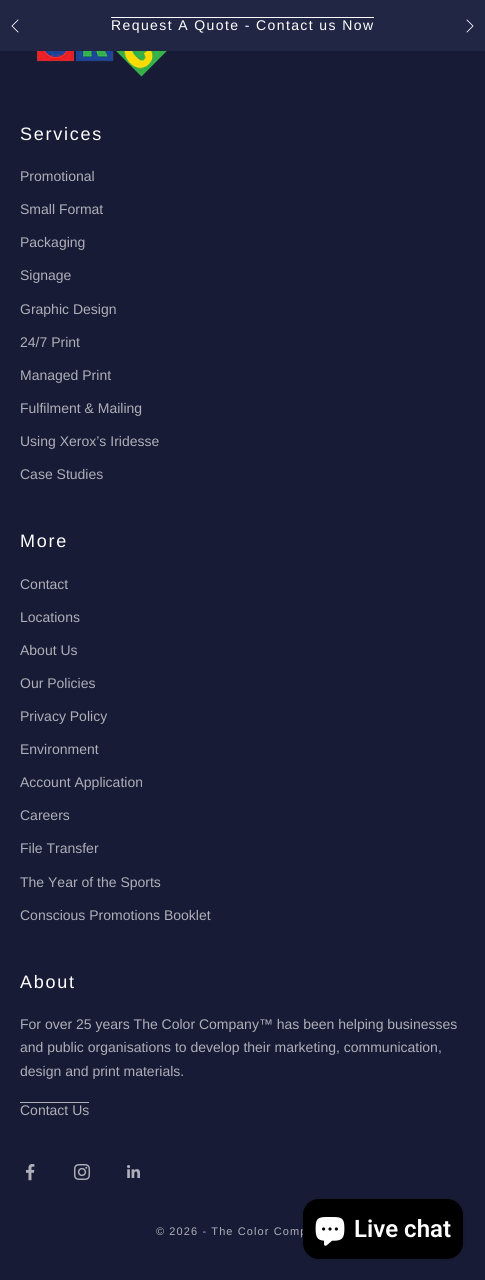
#include <cairo.h>
#include <math.h>
#include <stddef.h>

typedef struct { double x, y; const char *s; } line_t;

static void ink(cairo_t *ctx, unsigned color) {
    cairo_set_source_rgb(ctx, (color >> 16) / 255.0, (color >> 8 & 255) / 255.0, (color & 255) / 255.0);
}

static void write_spaced(cairo_t *ctx, double x, double y, const char *s, double letter, double word) {
    cairo_move_to(ctx, x, y);
    while (*s) {
        char ch[5] = {0};
        int n = 0;
        do ch[n++] = *s++; while ((*s & 0xC0) == 0x80);
        cairo_show_text(ctx, ch);
        cairo_rel_move_to(ctx, letter + word * (*ch == ' '), 0);
    }
}

static void round_path(cairo_t *ctx, double x, double y, double w, double h, double r) {
    cairo_new_sub_path(ctx);
    cairo_arc(ctx, x + w - r, y + h - r, r, 0, M_PI / 2);
    cairo_arc(ctx, x + r, y + h - r, r, M_PI / 2, M_PI);
    cairo_arc(ctx, x + r, y + r, r, M_PI, 1.5 * M_PI);
    cairo_arc(ctx, x + w - r, y + r, r, 1.5 * M_PI, 2 * M_PI);
    cairo_close_path(ctx);
}

static void blur_box(cairo_t *ctx, double x, double y, double w, double h, double r, double blur, double alpha) {
    cairo_push_group_with_content(ctx, CAIRO_CONTENT_ALPHA);
    cairo_set_operator(ctx, CAIRO_OPERATOR_SOURCE);
    for (int i = 15; i >= -15 && fmin(w, h) + blur * i / 3 > 0; i -= 2) {
        double e = blur * i / 6;
        cairo_set_source_rgba(ctx, 0, 0, 0, alpha * erfc((i - 1) / 8.5) / 2);
        round_path(ctx, x - e, y - e, w + 2 * e, h + 2 * e, fmax(0, fmin(r + e + blur * .6, fmin(w, h) / 2 + e)));
        cairo_fill(ctx);
    }
    cairo_pattern_t *soft = cairo_pop_group(ctx);
    cairo_mask(ctx, soft);
    cairo_pattern_destroy(soft);
}

static void paste(cairo_t *ctx, const char *path, double x, double y, double w, double h) {
    cairo_surface_t *image = cairo_image_surface_create_from_png(path);
    cairo_save(ctx);
    cairo_set_source_surface(ctx, image, x, y);
    cairo_rectangle(ctx, x, y, w, h);
    cairo_fill(ctx);
    cairo_restore(ctx);
    cairo_surface_destroy(image);
}

int main(void) {
    cairo_surface_t *surface = cairo_image_surface_create(CAIRO_FORMAT_RGB24, 485, 1280);
    cairo_t *ctx = cairo_create(surface);
    cairo_font_options_t *options = cairo_font_options_create();
    cairo_font_options_set_hint_metrics(options, CAIRO_HINT_METRICS_OFF);
    cairo_font_options_set_hint_style(options, CAIRO_HINT_STYLE_NONE);
    cairo_set_font_options(ctx, options);
    cairo_set_miter_limit(ctx, 4);
    ink(ctx, 0x181B35);
    cairo_paint(ctx);
    ink(ctx, 0x212644);
    cairo_rectangle(ctx, 0, 0, 485, 51);
    cairo_fill(ctx);
    cairo_new_path(ctx);
    cairo_move_to(ctx, 18, 20);
    cairo_line_to(ctx, 12, 26);
    cairo_line_to(ctx, 18, 32);
    ink(ctx, 0xFFFFFF);
    cairo_set_line_width(ctx, 0.8);
    cairo_set_line_cap(ctx, CAIRO_LINE_CAP_SQUARE);
    cairo_stroke(ctx);
    cairo_select_font_face(ctx, "Liberation Sans", CAIRO_FONT_SLANT_NORMAL, CAIRO_FONT_WEIGHT_NORMAL);
    cairo_set_font_size(ctx, 14);
    write_spaced(ctx, 111, 30, "Request A Quote - Contact us Now", 1.4, 0);
    cairo_rectangle(ctx, 111, 17, 263, 1);
    cairo_fill(ctx);
    cairo_new_path(ctx);
    cairo_move_to(ctx, 467, 32);
    cairo_line_to(ctx, 473, 26);
    cairo_line_to(ctx, 467, 20);
    cairo_stroke(ctx);
    paste(ctx, "media/1.png", 36, 51, 131, 26);
    cairo_set_font_size(ctx, 18);
    write_spaced(ctx, 20, 140, "Services", 1.75, 0);
    cairo_set_font_size(ctx, 14);
    ink(ctx, 0xAEAFB8);
    {
        static const line_t items[] = {
            {20, 181, "Promotional"},
            {20, 214, "Small Format"},
            {20, 247, "Packaging"},
            {20, 280, "Signage"},
            {20, 314, "Graphic Design"},
            {20, 347, "24/7 Print"},
            {20, 380, "Managed Print"},
            {20, 413, "Fulfilment & Mailing"},
            {20, 446, "Using Xerox’s Iridesse"},
            {20, 479, "Case Studies"},
        };
        for (size_t i = 0; i < sizeof items / sizeof *items; i++) {
            cairo_move_to(ctx, items[i].x, items[i].y);
            cairo_show_text(ctx, items[i].s);
        }
    }
    cairo_set_font_size(ctx, 18);
    ink(ctx, 0xFFFFFF);
    write_spaced(ctx, 20, 547, "More", 1.75, 0);
    cairo_set_font_size(ctx, 14);
    ink(ctx, 0xAEAFB8);
    {
        static const line_t items[] = {
            {20, 589, "Contact"},
            {20, 622, "Locations"},
            {20, 655, "About Us"},
            {20, 688, "Our Policies"},
            {20, 721, "Privacy Policy"},
            {20, 754, "Environment"},
            {20, 787, "Account Application"},
            {20, 820, "Careers"},
            {20, 853, "File Transfer"},
            {20, 887, "The Year of the Sports"},
            {20, 920, "Conscious Promotions Booklet"},
        };
        for (size_t i = 0; i < sizeof items / sizeof *items; i++) {
            cairo_move_to(ctx, items[i].x, items[i].y);
            cairo_show_text(ctx, items[i].s);
        }
    }
    cairo_set_font_size(ctx, 18);
    ink(ctx, 0xFFFFFF);
    write_spaced(ctx, 20, 988, "About", 1.75, 0);
    cairo_set_font_size(ctx, 14);
    ink(ctx, 0xAEAFB8);
    {
        static const line_t items[] = {
            {20, 1029, "For over 25 years The Color Company™ has been helping businesses"},
            {20, 1052, "and public organisations to develop their marketing, communication,"},
            {20, 1076, "design and print materials."},
            {20, 1115, "Contact Us"},
        };
        for (size_t i = 0; i < sizeof items / sizeof *items; i++) {
            cairo_move_to(ctx, items[i].x, items[i].y);
            cairo_show_text(ctx, items[i].s);
        }
    }
    cairo_rectangle(ctx, 20, 1102, 69, 1);
    cairo_fill(ctx);
    paste(ctx, "media/2.png", 26, 1164, 9, 17);
    paste(ctx, "media/3.png", 74, 1164, 16, 16);
    paste(ctx, "media/4.png", 127, 1165, 13, 13);
    cairo_set_font_size(ctx, 11);
    write_spaced(ctx, 156, 1235, "© 2026 - The Color Comp", 1.1, 0);
    ink(ctx, 0x000000);
    blur_box(ctx, 303, 1199, 160, 60, 16, 2.5, 0.15);
    ink(ctx, 0x000000);
    round_path(ctx, 303, 1199, 160, 60, 16);
    cairo_fill(ctx);
    paste(ctx, "media/5.png", 315, 1217, 30, 29);
    cairo_select_font_face(ctx, "Roboto SemiBold", CAIRO_FONT_SLANT_NORMAL, CAIRO_FONT_WEIGHT_NORMAL);
    cairo_set_font_size(ctx, 24);
    ink(ctx, 0xFFFFFF);
    cairo_move_to(ctx, 354, 1237);
    cairo_show_text(ctx, "Live chat");
    cairo_surface_write_to_png(surface, "image.png");
    cairo_font_options_destroy(options);
    cairo_destroy(ctx);
    cairo_surface_destroy(surface);
    return 0;
}
